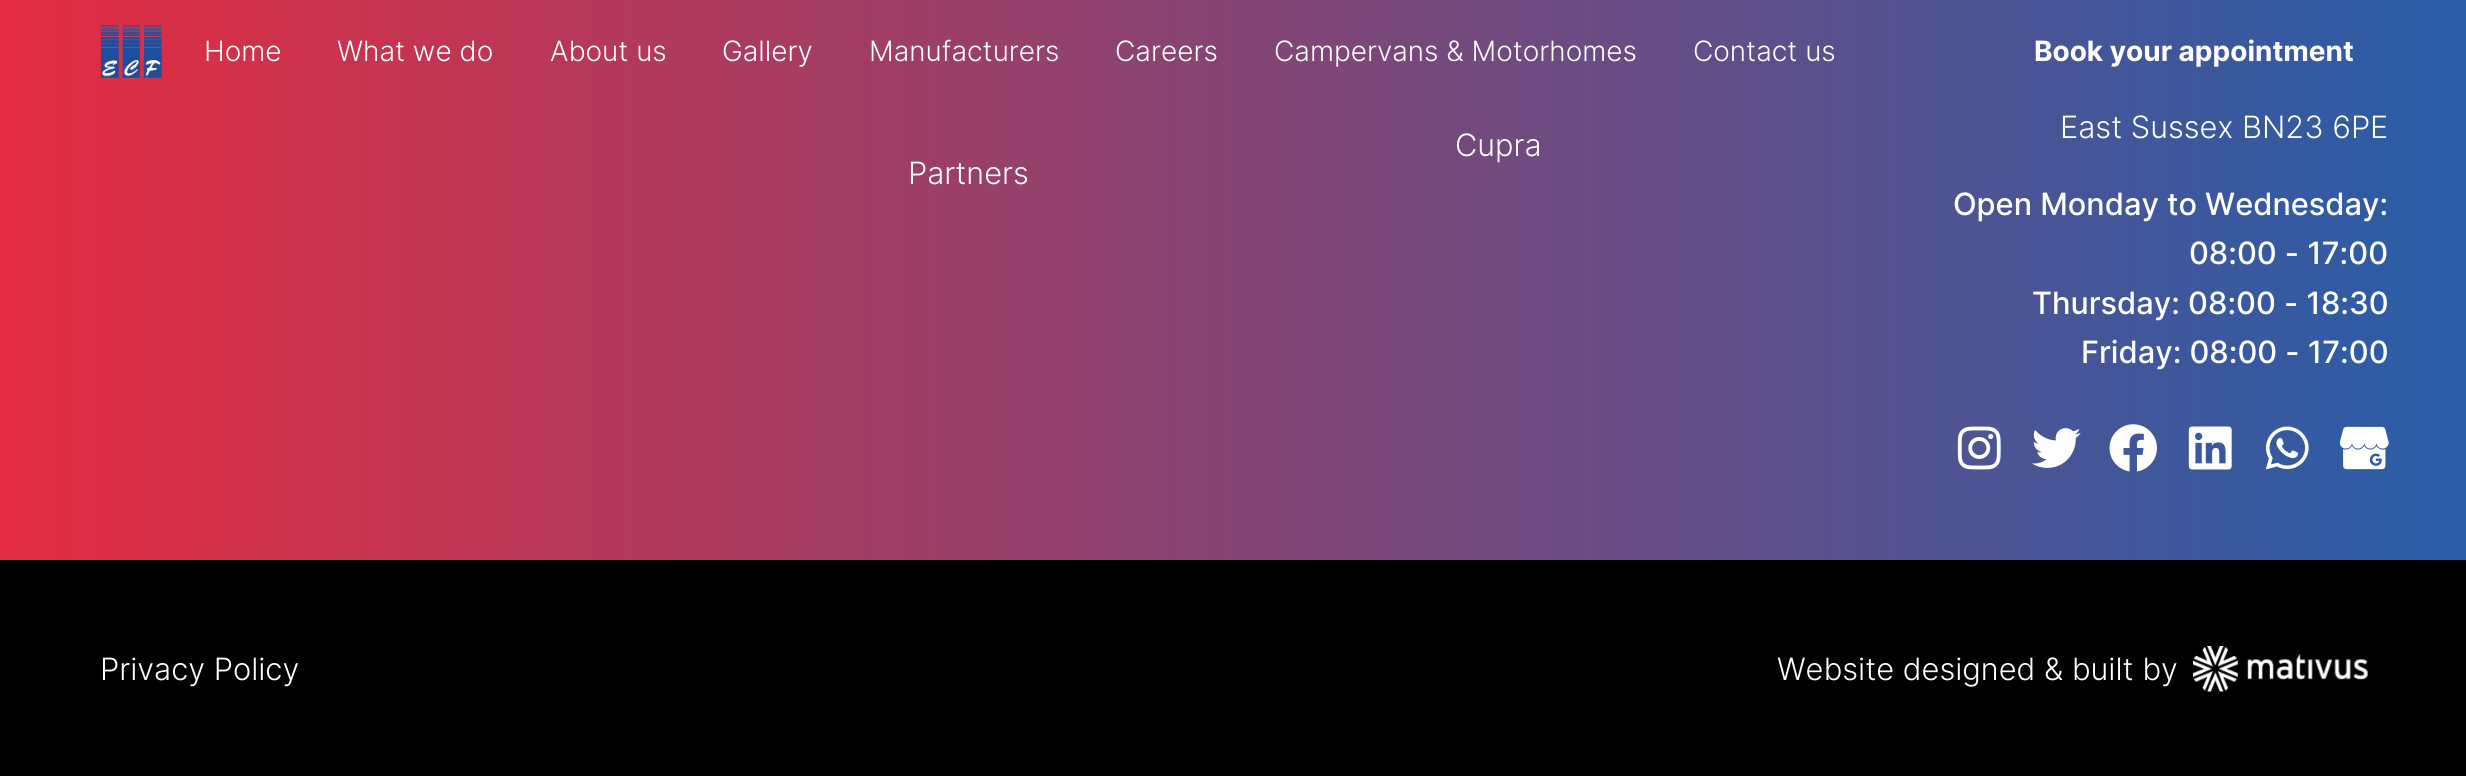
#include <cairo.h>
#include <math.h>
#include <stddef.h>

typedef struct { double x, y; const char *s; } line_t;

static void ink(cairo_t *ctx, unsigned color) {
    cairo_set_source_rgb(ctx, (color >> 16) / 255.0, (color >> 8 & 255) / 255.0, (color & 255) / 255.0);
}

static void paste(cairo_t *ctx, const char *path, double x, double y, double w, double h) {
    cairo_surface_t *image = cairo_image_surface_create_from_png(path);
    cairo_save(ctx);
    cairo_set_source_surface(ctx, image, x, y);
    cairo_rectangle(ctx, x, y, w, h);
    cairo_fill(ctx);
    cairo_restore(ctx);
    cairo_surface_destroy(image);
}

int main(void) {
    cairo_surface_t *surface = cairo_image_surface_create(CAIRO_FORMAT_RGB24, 2466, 776);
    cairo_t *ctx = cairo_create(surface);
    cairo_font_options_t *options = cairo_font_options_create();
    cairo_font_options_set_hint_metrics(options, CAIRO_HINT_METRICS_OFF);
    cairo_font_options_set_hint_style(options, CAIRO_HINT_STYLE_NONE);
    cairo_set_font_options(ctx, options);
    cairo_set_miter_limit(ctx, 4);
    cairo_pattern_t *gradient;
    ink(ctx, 0xFFFFFF);
    cairo_paint(ctx);
    gradient = cairo_pattern_create_linear(0, 53, 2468, 52);
    cairo_pattern_add_color_stop_rgba(gradient, 0, 0.89, 0.173, 0.251, 1);
    cairo_pattern_add_color_stop_rgba(gradient, 1, 0.157, 0.365, 0.659, 1);
    cairo_set_source(ctx, gradient);
    cairo_pattern_destroy(gradient);
    cairo_rectangle(ctx, 0, 0, 2466, 105);
    cairo_fill(ctx);
    paste(ctx, "media/1.png", 100, 25, 62, 54);
    cairo_select_font_face(ctx, "Inter Light", CAIRO_FONT_SLANT_NORMAL, CAIRO_FONT_WEIGHT_NORMAL);
    cairo_set_font_size(ctx, 28);
    ink(ctx, 0xFFFFFF);
    {
        static const line_t items[] = {
            {204, 61, "Home"},
            {337, 61, "What we do"},
            {550, 61, "About us"},
            {722, 61, "Gallery"},
            {869, 61, "Manufacturers"},
            {1115, 61, "Careers"},
            {1274, 61, "Campervans & Motorhomes"},
            {1693, 61, "Contact us"},
        };
        for (size_t i = 0; i < sizeof items / sizeof *items; i++) {
            cairo_move_to(ctx, items[i].x, items[i].y);
            cairo_show_text(ctx, items[i].s);
        }
    }
    cairo_select_font_face(ctx, "Inter", CAIRO_FONT_SLANT_NORMAL, CAIRO_FONT_WEIGHT_BOLD);
    cairo_move_to(ctx, 2034, 61);
    cairo_show_text(ctx, "Book your appointment");
    gradient = cairo_pattern_create_linear(0, 44, 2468, 44);
    cairo_pattern_add_color_stop_rgba(gradient, 0, 0.89, 0.173, 0.251, 1);
    cairo_pattern_add_color_stop_rgba(gradient, 1, 0.157, 0.365, 0.659, 1);
    cairo_set_source(ctx, gradient);
    cairo_pattern_destroy(gradient);
    cairo_rectangle(ctx, 0, 105, 2466, 455);
    cairo_fill(ctx);
    cairo_select_font_face(ctx, "Inter Light", CAIRO_FONT_SLANT_NORMAL, CAIRO_FONT_WEIGHT_NORMAL);
    cairo_set_font_size(ctx, 30.75);
    ink(ctx, 0xFFFFFF);
    {
        static const line_t items[] = {
            {1455, 156, "Cupra"},
            {908, 184, "Partners"},
            {2060, 138, "East Sussex BN23 6PE"},
        };
        for (size_t i = 0; i < sizeof items / sizeof *items; i++) {
            cairo_move_to(ctx, items[i].x, items[i].y);
            cairo_show_text(ctx, items[i].s);
        }
    }
    cairo_select_font_face(ctx, "Inter Medium", CAIRO_FONT_SLANT_NORMAL, CAIRO_FONT_WEIGHT_NORMAL);
    {
        static const line_t items[] = {
            {1953, 215, "Open Monday to Wednesday:"},
            {2189, 264, "08:00 - 17:00"},
            {2032, 314, "Thursday: 08:00 - 18:30"},
            {2081, 363, "Friday: 08:00 - 17:00"},
        };
        for (size_t i = 0; i < sizeof items / sizeof *items; i++) {
            cairo_move_to(ctx, items[i].x, items[i].y);
            cairo_show_text(ctx, items[i].s);
        }
    }
    paste(ctx, "media/2.png", 1957, 426, 44, 44);
    paste(ctx, "media/3.png", 2032, 428, 49, 40);
    paste(ctx, "media/4.png", 2109, 424, 48, 48);
    paste(ctx, "media/5.png", 2188, 426, 44, 44);
    paste(ctx, "media/6.png", 2265, 426, 44, 44);
    paste(ctx, "media/7.png", 2340, 426, 49, 44);
    ink(ctx, 0x000000);
    cairo_rectangle(ctx, 0, 560, 2466, 216);
    cairo_fill(ctx);
    cairo_select_font_face(ctx, "Inter Light", CAIRO_FONT_SLANT_NORMAL, CAIRO_FONT_WEIGHT_NORMAL);
    ink(ctx, 0xFFFFFF);
    cairo_move_to(ctx, 100, 680);
    cairo_show_text(ctx, "Privacy Policy");
    cairo_move_to(ctx, 1777, 680);
    cairo_show_text(ctx, "Website designed & built by");
    paste(ctx, "media/8.png", 2193, 646, 175, 46);
    cairo_surface_write_to_png(surface, "image.png");
    cairo_font_options_destroy(options);
    cairo_destroy(ctx);
    cairo_surface_destroy(surface);
    return 0;
}
